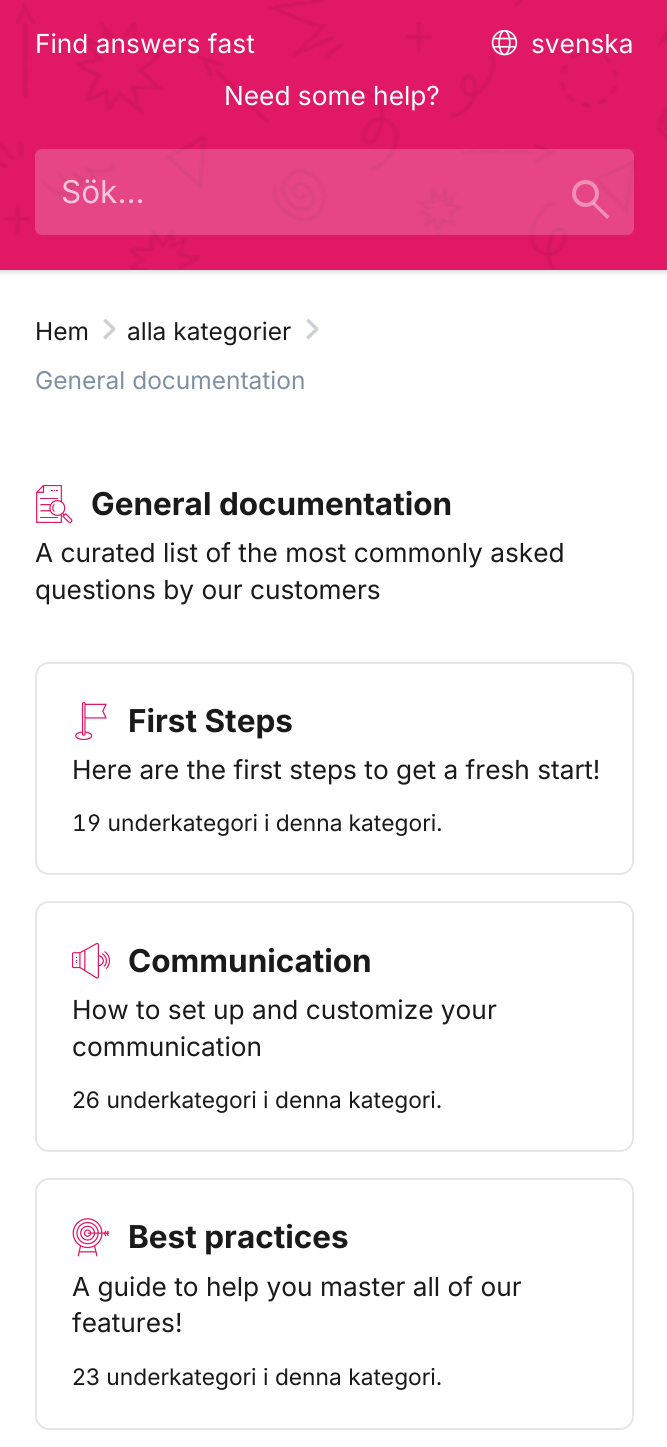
#include <cairo.h>
#include <math.h>
#include <stddef.h>


static void ink(cairo_t *ctx, unsigned color) {
    cairo_set_source_rgb(ctx, (color >> 16) / 255.0, (color >> 8 & 255) / 255.0, (color & 255) / 255.0);
}

static void round_path(cairo_t *ctx, double x, double y, double w, double h, double r) {
    cairo_new_sub_path(ctx);
    cairo_arc(ctx, x + w - r, y + h - r, r, 0, M_PI / 2);
    cairo_arc(ctx, x + r, y + h - r, r, M_PI / 2, M_PI);
    cairo_arc(ctx, x + r, y + r, r, M_PI, 1.5 * M_PI);
    cairo_arc(ctx, x + w - r, y + r, r, 1.5 * M_PI, 2 * M_PI);
    cairo_close_path(ctx);
}

static void blur_box(cairo_t *ctx, double x, double y, double w, double h, double r, double blur, double alpha) {
    cairo_push_group_with_content(ctx, CAIRO_CONTENT_ALPHA);
    cairo_set_operator(ctx, CAIRO_OPERATOR_SOURCE);
    for (int i = 15; i >= -15 && fmin(w, h) + blur * i / 3 > 0; i -= 2) {
        double e = blur * i / 6;
        cairo_set_source_rgba(ctx, 0, 0, 0, alpha * erfc((i - 1) / 8.5) / 2);
        round_path(ctx, x - e, y - e, w + 2 * e, h + 2 * e, fmax(0, fmin(r + e + blur * .6, fmin(w, h) / 2 + e)));
        cairo_fill(ctx);
    }
    cairo_pattern_t *soft = cairo_pop_group(ctx);
    cairo_mask(ctx, soft);
    cairo_pattern_destroy(soft);
}

static void paste(cairo_t *ctx, const char *path, double x, double y, double w, double h) {
    cairo_surface_t *image = cairo_image_surface_create_from_png(path);
    cairo_save(ctx);
    cairo_set_source_surface(ctx, image, x, y);
    cairo_rectangle(ctx, x, y, w, h);
    cairo_fill(ctx);
    cairo_restore(ctx);
    cairo_surface_destroy(image);
}

int main(void) {
    cairo_surface_t *surface = cairo_image_surface_create(CAIRO_FORMAT_RGB24, 667, 1447);
    cairo_t *ctx = cairo_create(surface);
    cairo_font_options_t *options = cairo_font_options_create();
    cairo_font_options_set_hint_metrics(options, CAIRO_HINT_METRICS_OFF);
    cairo_font_options_set_hint_style(options, CAIRO_HINT_STYLE_NONE);
    cairo_set_font_options(ctx, options);
    cairo_set_miter_limit(ctx, 4);
    ink(ctx, 0xFFFFFF);
    cairo_paint(ctx);
    ink(ctx, 0x000000);
    blur_box(ctx, 0, 2, 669, 269, 0, 3.5, 0.2);
    ink(ctx, 0xE01765);
    cairo_rectangle(ctx, 0, 0, 667, 270);
    cairo_fill(ctx);
    paste(ctx, "media/1.png", 0, 0, 667, 270);
    cairo_select_font_face(ctx, "Inter", CAIRO_FONT_SLANT_NORMAL, CAIRO_FONT_WEIGHT_NORMAL);
    cairo_set_font_size(ctx, 26.25);
    ink(ctx, 0xFFFFFF);
    cairo_move_to(ctx, 35, 53);
    cairo_show_text(ctx, "Find answers fast");
    cairo_move_to(ctx, 224, 105);
    cairo_show_text(ctx, "Need some help?");
    paste(ctx, "media/2.png", 491, 29, 27, 27);
    cairo_move_to(ctx, 531, 53);
    cairo_show_text(ctx, "svenska");
    cairo_set_source_rgba(ctx, 1, 1, 1, 0.2);
    round_path(ctx, 35, 149, 599, 86, 7);
    cairo_fill(ctx);
    cairo_set_font_size(ctx, 31.5);
    ink(ctx, 0xF7C7DA);
    cairo_move_to(ctx, 61, 203);
    cairo_show_text(ctx, "Sök...");
    cairo_new_path(ctx);
    cairo_arc(ctx, 585.5, 193.5, 11.5, 0, 2 * M_PI);
    ink(ctx, 0xF090B5);
    cairo_set_line_width(ctx, 4);
    cairo_stroke(ctx);
    cairo_set_source_rgba(ctx, 1, 1, 1, 0.4);
    cairo_new_path(ctx);
    cairo_move_to(ctx, 607, 219);
    cairo_line_to(ctx, 592, 204);
    cairo_line_to(ctx, 594.5, 202);
    cairo_line_to(ctx, 609.5, 216.5);
    cairo_close_path(ctx);
    cairo_fill(ctx);
    cairo_set_font_size(ctx, 24.5);
    ink(ctx, 0x1A1A1A);
    cairo_move_to(ctx, 35, 340);
    cairo_show_text(ctx, "Hem");
    paste(ctx, "media/3.png", 103, 318, 13, 22);
    cairo_move_to(ctx, 127, 340);
    cairo_show_text(ctx, "alla kategorier");
    paste(ctx, "media/4.png", 306, 318, 13, 22);
    ink(ctx, 0x7F8FA4);
    cairo_move_to(ctx, 35, 389);
    cairo_show_text(ctx, "General documentation");
    paste(ctx, "media/5.png", 36, 485, 37, 38);
    cairo_select_font_face(ctx, "Inter", CAIRO_FONT_SLANT_NORMAL, CAIRO_FONT_WEIGHT_BOLD);
    cairo_set_font_size(ctx, 31.5);
    ink(ctx, 0x1A1A1A);
    cairo_move_to(ctx, 91, 515);
    cairo_show_text(ctx, "General documentation");
    cairo_select_font_face(ctx, "Inter", CAIRO_FONT_SLANT_NORMAL, CAIRO_FONT_WEIGHT_NORMAL);
    cairo_set_font_size(ctx, 26.25);
    cairo_move_to(ctx, 35, 562);
    cairo_show_text(ctx, "A curated list of the most commonly asked");
    cairo_move_to(ctx, 35, 599);
    cairo_show_text(ctx, "questions by our customers");
    round_path(ctx, 36, 663, 597, 211, 13);
    ink(ctx, 0xE6E6E6);
    cairo_set_line_width(ctx, 2);
    cairo_stroke(ctx);
    paste(ctx, "media/6.png", 75, 702, 32, 38);
    cairo_select_font_face(ctx, "Inter", CAIRO_FONT_SLANT_NORMAL, CAIRO_FONT_WEIGHT_BOLD);
    cairo_set_font_size(ctx, 31.5);
    ink(ctx, 0x1A1A1A);
    cairo_move_to(ctx, 128, 732);
    cairo_show_text(ctx, "First Steps");
    cairo_select_font_face(ctx, "Inter", CAIRO_FONT_SLANT_NORMAL, CAIRO_FONT_WEIGHT_NORMAL);
    cairo_set_font_size(ctx, 26.25);
    cairo_move_to(ctx, 72, 779);
    cairo_show_text(ctx, "Here are the first steps to get a fresh start!");
    cairo_select_font_face(ctx, "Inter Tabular", CAIRO_FONT_SLANT_NORMAL, CAIRO_FONT_WEIGHT_NORMAL);
    cairo_set_font_size(ctx, 22.75);
    cairo_move_to(ctx, 72, 831);
    cairo_show_text(ctx, "19 underkategori i denna kategori.");
    round_path(ctx, 36, 902, 597, 249, 13);
    ink(ctx, 0xE6E6E6);
    cairo_stroke(ctx);
    paste(ctx, "media/7.png", 72, 942, 38, 37);
    cairo_select_font_face(ctx, "Inter", CAIRO_FONT_SLANT_NORMAL, CAIRO_FONT_WEIGHT_BOLD);
    cairo_set_font_size(ctx, 31.5);
    ink(ctx, 0x1A1A1A);
    cairo_move_to(ctx, 128, 972);
    cairo_show_text(ctx, "Communication");
    cairo_select_font_face(ctx, "Inter", CAIRO_FONT_SLANT_NORMAL, CAIRO_FONT_WEIGHT_NORMAL);
    cairo_set_font_size(ctx, 26.25);
    cairo_move_to(ctx, 72, 1019);
    cairo_show_text(ctx, "How to set up and customize your");
    cairo_move_to(ctx, 72, 1056);
    cairo_show_text(ctx, "communication");
    cairo_set_font_size(ctx, 22.75);
    cairo_move_to(ctx, 72, 1108);
    cairo_show_text(ctx, "26 underkategori i denna kategori.");
    round_path(ctx, 36, 1179, 597, 250, 13);
    ink(ctx, 0xE6E6E6);
    cairo_stroke(ctx);
    paste(ctx, "media/8.png", 72, 1218, 38, 39);
    cairo_select_font_face(ctx, "Inter", CAIRO_FONT_SLANT_NORMAL, CAIRO_FONT_WEIGHT_BOLD);
    cairo_set_font_size(ctx, 31.5);
    ink(ctx, 0x1A1A1A);
    cairo_move_to(ctx, 128, 1248);
    cairo_show_text(ctx, "Best practices");
    cairo_select_font_face(ctx, "Inter", CAIRO_FONT_SLANT_NORMAL, CAIRO_FONT_WEIGHT_NORMAL);
    cairo_set_font_size(ctx, 26.25);
    cairo_move_to(ctx, 72, 1296);
    cairo_show_text(ctx, "A guide to help you master all of our");
    cairo_move_to(ctx, 72, 1332);
    cairo_show_text(ctx, "features!");
    cairo_set_font_size(ctx, 22.75);
    cairo_move_to(ctx, 72, 1385);
    cairo_show_text(ctx, "23 underkategori i denna kategori.");
    cairo_surface_write_to_png(surface, "image.png");
    cairo_font_options_destroy(options);
    cairo_destroy(ctx);
    cairo_surface_destroy(surface);
    return 0;
}
